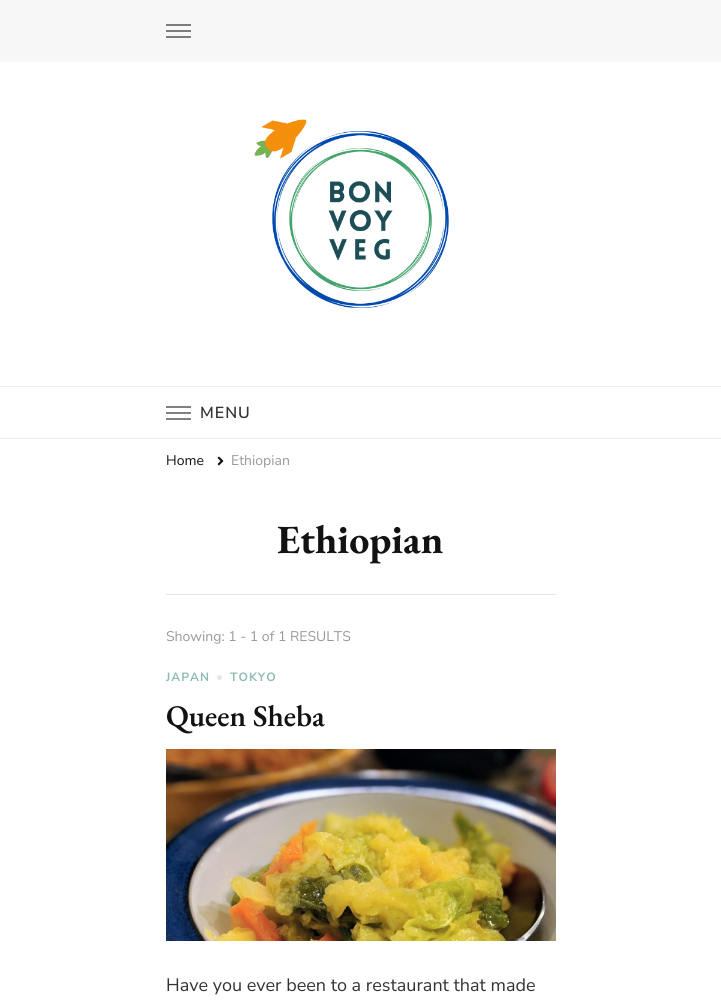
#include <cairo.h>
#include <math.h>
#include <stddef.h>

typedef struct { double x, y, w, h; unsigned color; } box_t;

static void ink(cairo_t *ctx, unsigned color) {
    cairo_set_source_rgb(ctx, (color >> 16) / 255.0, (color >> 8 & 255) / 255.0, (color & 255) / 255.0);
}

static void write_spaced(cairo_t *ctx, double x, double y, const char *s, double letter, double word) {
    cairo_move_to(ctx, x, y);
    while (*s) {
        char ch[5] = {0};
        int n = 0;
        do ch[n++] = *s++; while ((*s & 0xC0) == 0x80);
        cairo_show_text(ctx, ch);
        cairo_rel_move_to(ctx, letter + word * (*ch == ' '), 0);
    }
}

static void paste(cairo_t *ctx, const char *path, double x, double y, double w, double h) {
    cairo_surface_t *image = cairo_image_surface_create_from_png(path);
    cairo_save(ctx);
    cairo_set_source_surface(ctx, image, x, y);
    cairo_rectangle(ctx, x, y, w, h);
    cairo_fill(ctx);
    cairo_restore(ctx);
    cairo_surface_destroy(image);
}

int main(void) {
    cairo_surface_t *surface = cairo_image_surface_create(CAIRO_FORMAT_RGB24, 721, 1008);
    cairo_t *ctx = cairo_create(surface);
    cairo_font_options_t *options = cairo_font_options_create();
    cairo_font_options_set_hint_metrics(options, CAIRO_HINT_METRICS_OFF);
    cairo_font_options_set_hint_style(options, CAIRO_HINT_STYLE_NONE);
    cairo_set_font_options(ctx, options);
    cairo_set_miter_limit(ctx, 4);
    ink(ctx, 0xFFFFFF);
    cairo_paint(ctx);
    {
        static const box_t items[] = {
            {0, 0, 721, 62, 0xF7F7F7},
            {166, 24, 25, 2, 0x7C7C7C},
            {166, 30, 25, 2, 0x7C7C7C},
            {166, 36, 25, 2, 0x7C7C7C},
        };
        for (size_t i = 0; i < sizeof items / sizeof *items; i++) {
            ink(ctx, items[i].color);
            cairo_rectangle(ctx, items[i].x, items[i].y, items[i].w, items[i].h);
            cairo_fill(ctx);
        }
    }
    paste(ctx, "media/1.png", 254, 119, 195, 189);
    {
        static const box_t items[] = {
            {0, 386, 721, 1, 0xEDEDED},
            {0, 438, 721, 1, 0xEDEDED},
            {166, 406, 25, 2, 0x808080},
            {166, 412, 25, 2, 0x808080},
            {166, 418, 25, 2, 0x808080},
        };
        for (size_t i = 0; i < sizeof items / sizeof *items; i++) {
            ink(ctx, items[i].color);
            cairo_rectangle(ctx, items[i].x, items[i].y, items[i].w, items[i].h);
            cairo_fill(ctx);
        }
    }
    cairo_select_font_face(ctx, "Nunito Sans SemiBold", CAIRO_FONT_SLANT_NORMAL, CAIRO_FONT_WEIGHT_NORMAL);
    cairo_set_font_size(ctx, 16);
    ink(ctx, 0x333333);
    write_spaced(ctx, 200, 418, "MENU", 1, 0);
    cairo_select_font_face(ctx, "Nunito Sans", CAIRO_FONT_SLANT_NORMAL, CAIRO_FONT_WEIGHT_NORMAL);
    cairo_set_font_size(ctx, 14);
    ink(ctx, 0x121212);
    cairo_move_to(ctx, 166, 465);
    cairo_show_text(ctx, "Home");
    paste(ctx, "media/2.png", 217, 456, 7, 10);
    ink(ctx, 0x999999);
    cairo_move_to(ctx, 231, 465);
    cairo_show_text(ctx, "Ethiopian");
    ink(ctx, 0xE6E6E6);
    cairo_rectangle(ctx, 166, 594, 390, 1);
    cairo_fill(ctx);
    cairo_select_font_face(ctx, "EB Garamond", CAIRO_FONT_SLANT_NORMAL, CAIRO_FONT_WEIGHT_BOLD);
    cairo_set_font_size(ctx, 40);
    ink(ctx, 0x121212);
    cairo_move_to(ctx, 277, 553);
    cairo_show_text(ctx, "Ethiopian");
    cairo_select_font_face(ctx, "Nunito Sans", CAIRO_FONT_SLANT_NORMAL, CAIRO_FONT_WEIGHT_NORMAL);
    cairo_set_font_size(ctx, 14);
    ink(ctx, 0x999999);
    cairo_move_to(ctx, 166, 641);
    cairo_show_text(ctx, "Showing: 1 - 1 of 1 RESULTS");
    cairo_select_font_face(ctx, "Nunito Sans", CAIRO_FONT_SLANT_NORMAL, CAIRO_FONT_WEIGHT_BOLD);
    cairo_set_font_size(ctx, 12);
    ink(ctx, 0x90BAB5);
    write_spaced(ctx, 166, 681, "JAPAN", 1, 0);
    ink(ctx, 0xE6E6E6);
    cairo_new_path(ctx);
    cairo_arc(ctx, 219.5, 677.5, 2.5, 0, 2 * M_PI);
    cairo_fill(ctx);
    ink(ctx, 0x90BAB5);
    write_spaced(ctx, 230, 681, "TOKYO", 1, 0);
    cairo_select_font_face(ctx, "EB Garamond SemiBold", CAIRO_FONT_SLANT_NORMAL, CAIRO_FONT_WEIGHT_NORMAL);
    cairo_set_font_size(ctx, 30);
    ink(ctx, 0x121212);
    cairo_move_to(ctx, 166, 726);
    cairo_show_text(ctx, "Queen Sheba");
    paste(ctx, "media/3.png", 166, 749, 390, 192);
    cairo_select_font_face(ctx, "Nunito Sans", CAIRO_FONT_SLANT_NORMAL, CAIRO_FONT_WEIGHT_NORMAL);
    cairo_set_font_size(ctx, 18);
    ink(ctx, 0x333333);
    cairo_move_to(ctx, 166, 991);
    cairo_show_text(ctx, "Have you ever been to a restaurant that made");
    cairo_surface_write_to_png(surface, "image.png");
    cairo_font_options_destroy(options);
    cairo_destroy(ctx);
    cairo_surface_destroy(surface);
    return 0;
}
